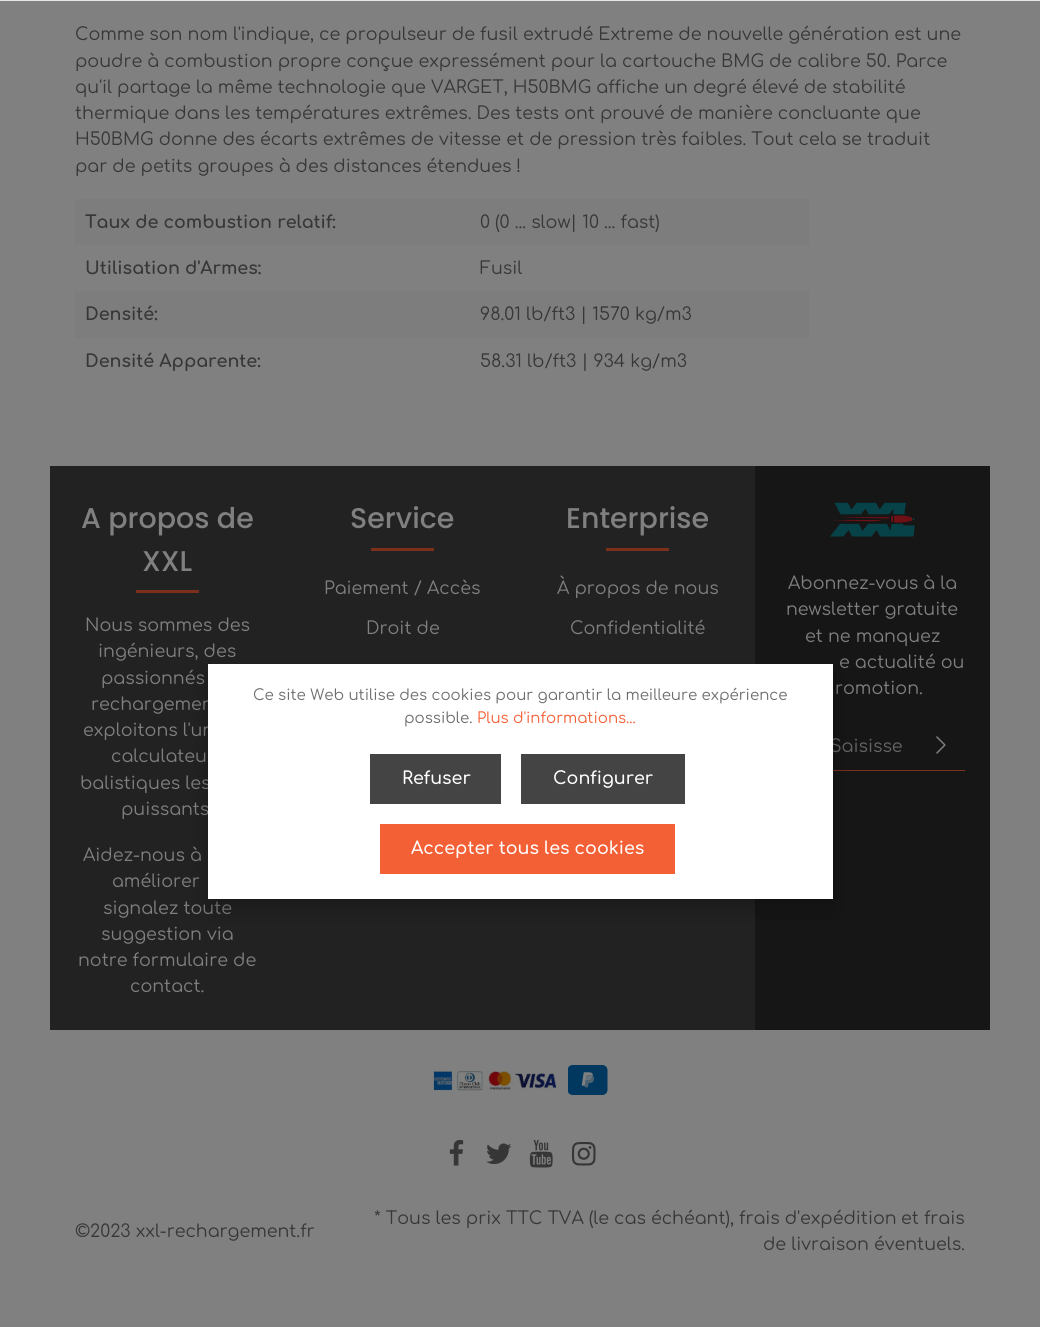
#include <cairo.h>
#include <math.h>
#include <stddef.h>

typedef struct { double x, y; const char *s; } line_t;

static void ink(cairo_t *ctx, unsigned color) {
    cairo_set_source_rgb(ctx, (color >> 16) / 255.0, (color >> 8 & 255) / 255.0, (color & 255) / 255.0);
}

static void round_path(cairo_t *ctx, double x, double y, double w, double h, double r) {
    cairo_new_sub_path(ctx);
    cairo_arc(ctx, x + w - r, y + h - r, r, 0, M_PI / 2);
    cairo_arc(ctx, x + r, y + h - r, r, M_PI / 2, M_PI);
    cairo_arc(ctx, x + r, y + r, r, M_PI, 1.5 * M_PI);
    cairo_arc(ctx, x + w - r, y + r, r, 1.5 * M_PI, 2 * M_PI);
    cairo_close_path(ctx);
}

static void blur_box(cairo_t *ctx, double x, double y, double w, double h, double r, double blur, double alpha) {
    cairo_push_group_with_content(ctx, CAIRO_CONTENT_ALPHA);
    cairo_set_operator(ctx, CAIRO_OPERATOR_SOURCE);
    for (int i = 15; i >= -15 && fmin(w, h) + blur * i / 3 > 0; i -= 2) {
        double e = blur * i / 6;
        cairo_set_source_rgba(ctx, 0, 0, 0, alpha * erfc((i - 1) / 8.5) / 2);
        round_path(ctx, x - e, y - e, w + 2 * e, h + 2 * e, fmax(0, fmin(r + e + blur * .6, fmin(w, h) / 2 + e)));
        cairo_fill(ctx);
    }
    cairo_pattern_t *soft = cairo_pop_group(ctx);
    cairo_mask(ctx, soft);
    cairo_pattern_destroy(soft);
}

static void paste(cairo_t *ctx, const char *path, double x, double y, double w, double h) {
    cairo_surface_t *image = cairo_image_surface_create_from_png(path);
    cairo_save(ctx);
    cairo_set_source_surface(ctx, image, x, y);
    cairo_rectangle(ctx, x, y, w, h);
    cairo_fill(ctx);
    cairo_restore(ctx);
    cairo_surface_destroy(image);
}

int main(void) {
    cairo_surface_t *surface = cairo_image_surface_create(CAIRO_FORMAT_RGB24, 1040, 1327);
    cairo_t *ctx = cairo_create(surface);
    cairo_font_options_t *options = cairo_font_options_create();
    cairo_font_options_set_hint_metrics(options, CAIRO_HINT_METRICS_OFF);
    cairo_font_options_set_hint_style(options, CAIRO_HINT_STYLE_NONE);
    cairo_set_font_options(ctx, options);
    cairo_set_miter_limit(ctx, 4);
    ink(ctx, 0x808080);
    cairo_paint(ctx);
    cairo_select_font_face(ctx, "Comfortaa", CAIRO_FONT_SLANT_NORMAL, CAIRO_FONT_WEIGHT_NORMAL);
    cairo_set_font_size(ctx, 17.5);
    ink(ctx, 0x373737);
    {
        static const line_t items[] = {
            {75, 40, "Comme son nom l'indique, ce propulseur de fusil extrudé Extreme de nouvelle génération est une"},
            {75, 67, "poudre à combustion propre conçue expressément pour la cartouche BMG de calibre 50. Parce"},
            {75, 93, "qu'il partage la même technologie que VARGET, H50BMG affiche un degré élevé de stabilité"},
            {75, 119, "thermique dans les températures extrêmes. Des tests ont prouvé de manière concluante que"},
            {75, 145, "H50BMG donne des écarts extrêmes de vitesse et de pression très faibles. Tout cela se traduit"},
            {75, 172, "par de petits groupes à des distances étendues !"},
        };
        for (size_t i = 0; i < sizeof items / sizeof *items; i++) {
            cairo_move_to(ctx, items[i].x, items[i].y);
            cairo_show_text(ctx, items[i].s);
        }
    }
    ink(ctx, 0x7D7D7D);
    cairo_rectangle(ctx, 75, 199, 734, 46);
    cairo_fill(ctx);
    cairo_select_font_face(ctx, "Comfortaa", CAIRO_FONT_SLANT_NORMAL, CAIRO_FONT_WEIGHT_BOLD);
    ink(ctx, 0x373737);
    cairo_move_to(ctx, 85, 228);
    cairo_show_text(ctx, "Taux de combustion relatif:");
    cairo_select_font_face(ctx, "Comfortaa", CAIRO_FONT_SLANT_NORMAL, CAIRO_FONT_WEIGHT_NORMAL);
    cairo_move_to(ctx, 480, 228);
    cairo_show_text(ctx, "0 (0 ... slow| 10 ... fast)");
    cairo_select_font_face(ctx, "Comfortaa", CAIRO_FONT_SLANT_NORMAL, CAIRO_FONT_WEIGHT_BOLD);
    cairo_move_to(ctx, 85, 274);
    cairo_show_text(ctx, "Utilisation d'Armes:");
    cairo_select_font_face(ctx, "Comfortaa", CAIRO_FONT_SLANT_NORMAL, CAIRO_FONT_WEIGHT_NORMAL);
    cairo_move_to(ctx, 480, 274);
    cairo_show_text(ctx, "Fusil");
    ink(ctx, 0x7D7D7D);
    cairo_rectangle(ctx, 75, 291, 734, 47);
    cairo_fill(ctx);
    cairo_select_font_face(ctx, "Comfortaa", CAIRO_FONT_SLANT_NORMAL, CAIRO_FONT_WEIGHT_BOLD);
    ink(ctx, 0x373737);
    cairo_move_to(ctx, 85, 320);
    cairo_show_text(ctx, "Densité:");
    cairo_select_font_face(ctx, "Comfortaa", CAIRO_FONT_SLANT_NORMAL, CAIRO_FONT_WEIGHT_NORMAL);
    cairo_move_to(ctx, 480, 320);
    cairo_show_text(ctx, "98.01 lb/ft3 | 1570 kg/m3");
    cairo_select_font_face(ctx, "Comfortaa", CAIRO_FONT_SLANT_NORMAL, CAIRO_FONT_WEIGHT_BOLD);
    cairo_move_to(ctx, 85, 367);
    cairo_show_text(ctx, "Densité Apparente:");
    cairo_select_font_face(ctx, "Comfortaa", CAIRO_FONT_SLANT_NORMAL, CAIRO_FONT_WEIGHT_NORMAL);
    cairo_move_to(ctx, 480, 367);
    cairo_show_text(ctx, "58.31 lb/ft3 | 934 kg/m3");
    ink(ctx, 0x222222);
    cairo_rectangle(ctx, 50, 466, 705, 564);
    cairo_fill(ctx);
    cairo_select_font_face(ctx, "Poppins Medium", CAIRO_FONT_SLANT_NORMAL, CAIRO_FONT_WEIGHT_NORMAL);
    cairo_set_font_size(ctx, 28.5);
    ink(ctx, 0x808080);
    cairo_move_to(ctx, 81, 528);
    cairo_show_text(ctx, "A propos de");
    cairo_move_to(ctx, 142, 571);
    cairo_show_text(ctx, "XXL");
    ink(ctx, 0x7A301B);
    cairo_rectangle(ctx, 136, 590, 63, 3);
    cairo_fill(ctx);
    cairo_select_font_face(ctx, "Comfortaa", CAIRO_FONT_SLANT_NORMAL, CAIRO_FONT_WEIGHT_NORMAL);
    cairo_set_font_size(ctx, 17.5);
    ink(ctx, 0x808080);
    {
        static const line_t items[] = {
            {85, 631, "Nous sommes des"},
            {98, 657, "ingénieurs, des"},
            {101, 684, "passionnés"},
            {91, 710, "rechargemen"},
            {83, 736, "exploitons l'un"},
            {111, 762, "calculateu"},
            {80, 789, "balistiques les"},
            {121, 815, "puissants"},
            {83, 861, "Aidez-nous à"},
            {112, 887, "améliorer"},
            {103, 914, "signalez toute"},
            {101, 940, "suggestion via"},
            {78, 966, "notre formulaire de"},
            {130, 992, "contact."},
        };
        for (size_t i = 0; i < sizeof items / sizeof *items; i++) {
            cairo_move_to(ctx, items[i].x, items[i].y);
            cairo_show_text(ctx, items[i].s);
        }
    }
    cairo_select_font_face(ctx, "Poppins Medium", CAIRO_FONT_SLANT_NORMAL, CAIRO_FONT_WEIGHT_NORMAL);
    cairo_set_font_size(ctx, 28.5);
    cairo_move_to(ctx, 350, 528);
    cairo_show_text(ctx, "Service");
    ink(ctx, 0x7A301B);
    cairo_rectangle(ctx, 371, 548, 63, 3);
    cairo_fill(ctx);
    cairo_select_font_face(ctx, "Comfortaa", CAIRO_FONT_SLANT_NORMAL, CAIRO_FONT_WEIGHT_NORMAL);
    cairo_set_font_size(ctx, 17.5);
    ink(ctx, 0x808080);
    cairo_move_to(ctx, 324, 594);
    cairo_show_text(ctx, "Paiement / Accès");
    cairo_move_to(ctx, 366, 634);
    cairo_show_text(ctx, "Droit de");
    cairo_select_font_face(ctx, "Poppins Medium", CAIRO_FONT_SLANT_NORMAL, CAIRO_FONT_WEIGHT_NORMAL);
    cairo_set_font_size(ctx, 28.5);
    cairo_move_to(ctx, 566, 528);
    cairo_show_text(ctx, "Enterprise");
    ink(ctx, 0x7A301B);
    cairo_rectangle(ctx, 606, 548, 63, 3);
    cairo_fill(ctx);
    cairo_select_font_face(ctx, "Comfortaa", CAIRO_FONT_SLANT_NORMAL, CAIRO_FONT_WEIGHT_NORMAL);
    cairo_set_font_size(ctx, 17.5);
    ink(ctx, 0x808080);
    cairo_move_to(ctx, 557, 594);
    cairo_show_text(ctx, "À propos de nous");
    cairo_move_to(ctx, 570, 634);
    cairo_show_text(ctx, "Confidentialité");
    ink(ctx, 0x161616);
    cairo_rectangle(ctx, 755, 466, 235, 564);
    cairo_fill(ctx);
    paste(ctx, "media/1.png", 830, 502, 85, 35);
    ink(ctx, 0x808080);
    {
        static const line_t items[] = {
            {788, 589, "Abonnez-vous à la"},
            {786, 615, "newsletter gratuite"},
            {805, 642, "et ne manquez"},
            {839, 668, "e actualité ou"},
            {835, 694, "romotion."},
        };
        for (size_t i = 0; i < sizeof items / sizeof *items; i++) {
            cairo_move_to(ctx, items[i].x, items[i].y);
            cairo_show_text(ctx, items[i].s);
        }
    }
    ink(ctx, 0x7A301B);
    cairo_rectangle(ctx, 833, 770, 132, 1);
    cairo_fill(ctx);
    ink(ctx, 0x656565);
    cairo_move_to(ctx, 830, 752);
    cairo_show_text(ctx, "Saisisse");
    paste(ctx, "media/2.png", 936, 736, 10, 18);
    paste(ctx, "media/3.png", 433, 1070, 124, 22);
    paste(ctx, "media/4.png", 568, 1065, 40, 30);
    paste(ctx, "media/5.png", 449, 1140, 15, 26);
    paste(ctx, "media/6.png", 486, 1143, 26, 21);
    paste(ctx, "media/7.png", 529, 1140, 24, 28);
    paste(ctx, "media/8.png", 571, 1142, 25, 24);
    ink(ctx, 0x373737);
    {
        static const line_t items[] = {
            {75, 1237, "©2023 xxl-rechargement.fr"},
            {374, 1224, "* Tous les prix TTC TVA (le cas échéant), frais d'expédition"},
            {901, 1224, "et frais"},
            {763, 1250, "de livraison éventuels."},
        };
        for (size_t i = 0; i < sizeof items / sizeof *items; i++) {
            cairo_move_to(ctx, items[i].x, items[i].y);
            cairo_show_text(ctx, items[i].s);
        }
    }
    ink(ctx, 0xE8E7E8);
    cairo_rectangle(ctx, 0, 0, 1040, 1);
    cairo_fill(ctx);
    ink(ctx, 0x000000);
    blur_box(ctx, 208, 674, 625, 235, 0, 10, 0.25);
    ink(ctx, 0xFFFFFF);
    cairo_rectangle(ctx, 208, 664, 625, 235);
    cairo_fill(ctx);
    cairo_set_font_size(ctx, 15);
    ink(ctx, 0x6D6D6D);
    cairo_move_to(ctx, 253, 700);
    cairo_show_text(ctx, "Ce site Web utilise des cookies pour garantir la meilleure expérience");
    cairo_move_to(ctx, 404, 723);
    cairo_show_text(ctx, "possible.");
    ink(ctx, 0xF46036);
    cairo_move_to(ctx, 477, 723);
    cairo_show_text(ctx, "Plus d'informations...");
    ink(ctx, 0x444444);
    cairo_rectangle(ctx, 370, 754, 131, 50);
    cairo_fill(ctx);
    cairo_select_font_face(ctx, "Comfortaa SemiBold", CAIRO_FONT_SLANT_NORMAL, CAIRO_FONT_WEIGHT_NORMAL);
    cairo_set_font_size(ctx, 17.5);
    ink(ctx, 0xFFFFFF);
    cairo_move_to(ctx, 402, 784);
    cairo_show_text(ctx, "Refuser");
    ink(ctx, 0x444444);
    cairo_rectangle(ctx, 521, 754, 164, 50);
    cairo_fill(ctx);
    ink(ctx, 0xFFFFFF);
    cairo_move_to(ctx, 553, 784);
    cairo_show_text(ctx, "Configurer");
    ink(ctx, 0xF46036);
    cairo_rectangle(ctx, 380, 824, 295, 50);
    cairo_fill(ctx);
    ink(ctx, 0xFFFFFF);
    cairo_move_to(ctx, 411, 854);
    cairo_show_text(ctx, "Accepter tous les cookies");
    cairo_surface_write_to_png(surface, "image.png");
    cairo_font_options_destroy(options);
    cairo_destroy(ctx);
    cairo_surface_destroy(surface);
    return 0;
}
